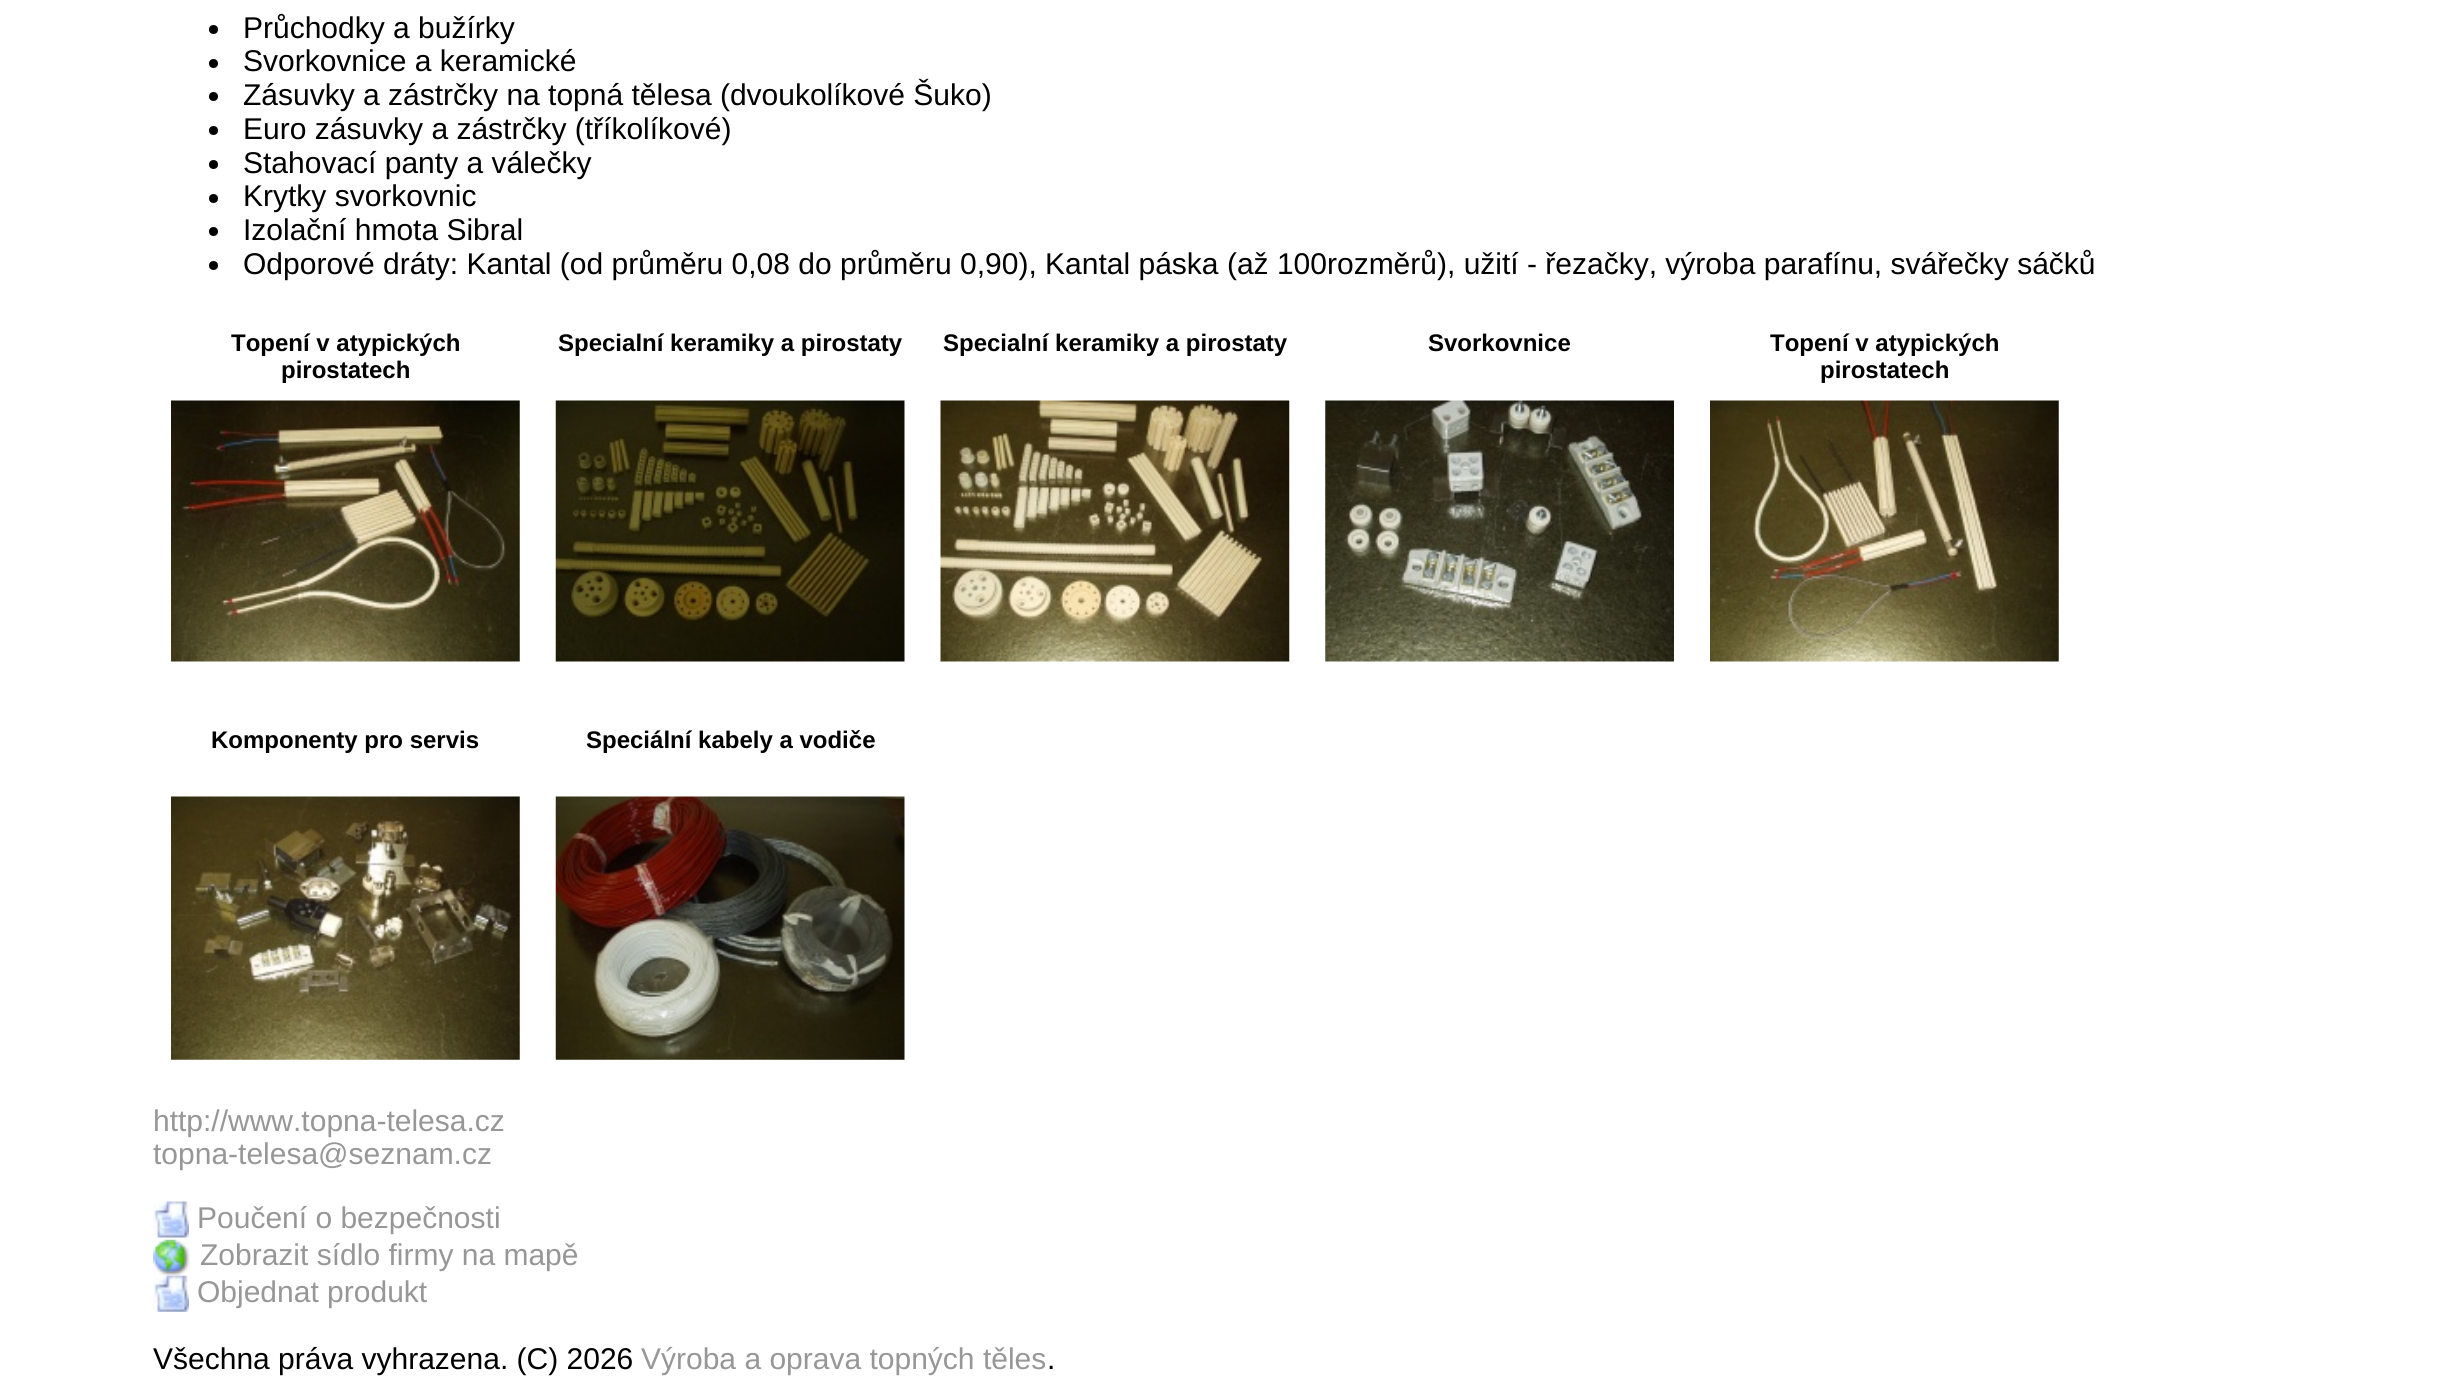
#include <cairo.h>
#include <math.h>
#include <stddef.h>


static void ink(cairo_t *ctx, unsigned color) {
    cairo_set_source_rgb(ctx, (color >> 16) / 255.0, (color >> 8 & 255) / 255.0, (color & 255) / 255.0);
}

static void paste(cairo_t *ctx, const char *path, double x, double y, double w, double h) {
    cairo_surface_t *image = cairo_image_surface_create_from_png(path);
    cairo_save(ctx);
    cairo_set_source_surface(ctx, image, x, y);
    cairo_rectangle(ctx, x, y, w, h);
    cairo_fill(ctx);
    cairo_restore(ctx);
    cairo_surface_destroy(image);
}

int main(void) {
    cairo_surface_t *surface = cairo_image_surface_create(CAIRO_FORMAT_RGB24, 2442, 1391);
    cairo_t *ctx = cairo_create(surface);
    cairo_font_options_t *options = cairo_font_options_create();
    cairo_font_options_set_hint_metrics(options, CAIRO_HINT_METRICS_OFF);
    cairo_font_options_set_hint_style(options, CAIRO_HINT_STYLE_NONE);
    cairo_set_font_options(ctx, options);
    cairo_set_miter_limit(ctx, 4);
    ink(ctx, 0xFFFFFF);
    cairo_paint(ctx);
    ink(ctx, 0x000000);
    cairo_arc(ctx, 213.5, 29.5, 4.5, 0, 2 * M_PI);
    cairo_fill(ctx);
    cairo_select_font_face(ctx, "Liberation Sans", CAIRO_FONT_SLANT_NORMAL, CAIRO_FONT_WEIGHT_NORMAL);
    cairo_set_font_size(ctx, 30);
    cairo_move_to(ctx, 243, 38);
    cairo_show_text(ctx, "Průchodky a bužírky");
    cairo_new_path(ctx);
    cairo_arc(ctx, 213.5, 63.5, 4.5, 0, 2 * M_PI);
    cairo_fill(ctx);
    cairo_move_to(ctx, 243, 71);
    cairo_show_text(ctx, "Svorkovnice a keramické");
    cairo_new_path(ctx);
    cairo_arc(ctx, 213.5, 96.5, 4.5, 0, 2 * M_PI);
    cairo_fill(ctx);
    cairo_move_to(ctx, 243, 105);
    cairo_show_text(ctx, "Zásuvky a zástrčky na topná tělesa (dvoukolíkové Šuko)");
    cairo_new_path(ctx);
    cairo_arc(ctx, 213.5, 130.5, 4.5, 0, 2 * M_PI);
    cairo_fill(ctx);
    cairo_move_to(ctx, 243, 139);
    cairo_show_text(ctx, "Euro zásuvky a zástrčky (tříkolíkové)");
    cairo_new_path(ctx);
    cairo_arc(ctx, 213.5, 164.5, 4.5, 0, 2 * M_PI);
    cairo_fill(ctx);
    cairo_move_to(ctx, 243, 173);
    cairo_show_text(ctx, "Stahovací panty a válečky");
    cairo_new_path(ctx);
    cairo_arc(ctx, 213.5, 198.5, 4.5, 0, 2 * M_PI);
    cairo_fill(ctx);
    cairo_move_to(ctx, 243, 206);
    cairo_show_text(ctx, "Krytky svorkovnic");
    cairo_new_path(ctx);
    cairo_arc(ctx, 213.5, 231.5, 4.5, 0, 2 * M_PI);
    cairo_fill(ctx);
    cairo_move_to(ctx, 243, 240);
    cairo_show_text(ctx, "Izolační hmota Sibral");
    cairo_new_path(ctx);
    cairo_arc(ctx, 213.5, 265.5, 4.5, 0, 2 * M_PI);
    cairo_fill(ctx);
    cairo_move_to(ctx, 243, 274);
    cairo_show_text(ctx, "Odporové dráty: Kantal (od průměru 0,08 do průměru 0,90), Kantal páska (až 100rozměrů), užití - řezačky, výroba parafínu, svářečky sáčků");
    cairo_select_font_face(ctx, "Liberation Sans", CAIRO_FONT_SLANT_NORMAL, CAIRO_FONT_WEIGHT_BOLD);
    cairo_set_font_size(ctx, 24);
    cairo_move_to(ctx, 231, 351);
    cairo_show_text(ctx, "Topení v atypických");
    cairo_move_to(ctx, 281, 378);
    cairo_show_text(ctx, "pirostatech");
    paste(ctx, "media/1.png", 171, 400, 349, 262);
    cairo_move_to(ctx, 558, 351);
    cairo_show_text(ctx, "Specialní keramiky a pirostaty");
    paste(ctx, "media/2.png", 555, 400, 350, 262);
    cairo_move_to(ctx, 943, 351);
    cairo_show_text(ctx, "Specialní keramiky a pirostaty");
    paste(ctx, "media/3.png", 940, 400, 350, 262);
    cairo_move_to(ctx, 1428, 351);
    cairo_show_text(ctx, "Svorkovnice");
    paste(ctx, "media/4.png", 1325, 400, 349, 262);
    cairo_move_to(ctx, 1770, 351);
    cairo_show_text(ctx, "Topení v atypických");
    cairo_move_to(ctx, 1820, 378);
    cairo_show_text(ctx, "pirostatech");
    paste(ctx, "media/5.png", 1710, 400, 349, 262);
    cairo_move_to(ctx, 211, 748);
    cairo_show_text(ctx, "Komponenty pro servis");
    paste(ctx, "media/6.png", 171, 796, 349, 264);
    cairo_move_to(ctx, 586, 748);
    cairo_show_text(ctx, "Speciální kabely a vodiče");
    paste(ctx, "media/7.png", 555, 796, 350, 264);
    cairo_select_font_face(ctx, "Liberation Sans", CAIRO_FONT_SLANT_NORMAL, CAIRO_FONT_WEIGHT_NORMAL);
    cairo_set_font_size(ctx, 30);
    ink(ctx, 0x979797);
    cairo_move_to(ctx, 153, 1131);
    cairo_show_text(ctx, "http://www.topna-telesa.cz");
    cairo_move_to(ctx, 153, 1164);
    cairo_show_text(ctx, "topna-telesa@seznam.cz");
    paste(ctx, "media/8.png", 153, 1201, 36, 37);
    cairo_move_to(ctx, 197, 1228);
    cairo_show_text(ctx, "Poučení o bezpečnosti");
    paste(ctx, "media/9.png", 153, 1239, 37, 37);
    cairo_move_to(ctx, 200, 1265);
    cairo_show_text(ctx, "Zobrazit sídlo firmy na mapě");
    paste(ctx, "media/10.png", 153, 1275, 36, 37);
    cairo_move_to(ctx, 197, 1302);
    cairo_show_text(ctx, "Objednat produkt");
    ink(ctx, 0x000000);
    cairo_move_to(ctx, 153, 1369);
    cairo_show_text(ctx, "Všechna práva vyhrazena. (C) 2026");
    ink(ctx, 0x979797);
    cairo_move_to(ctx, 641, 1369);
    cairo_show_text(ctx, "Výroba a oprava topných těles");
    ink(ctx, 0x000000);
    cairo_move_to(ctx, 1047, 1369);
    cairo_show_text(ctx, ".");
    cairo_surface_write_to_png(surface, "image.png");
    cairo_font_options_destroy(options);
    cairo_destroy(ctx);
    cairo_surface_destroy(surface);
    return 0;
}
